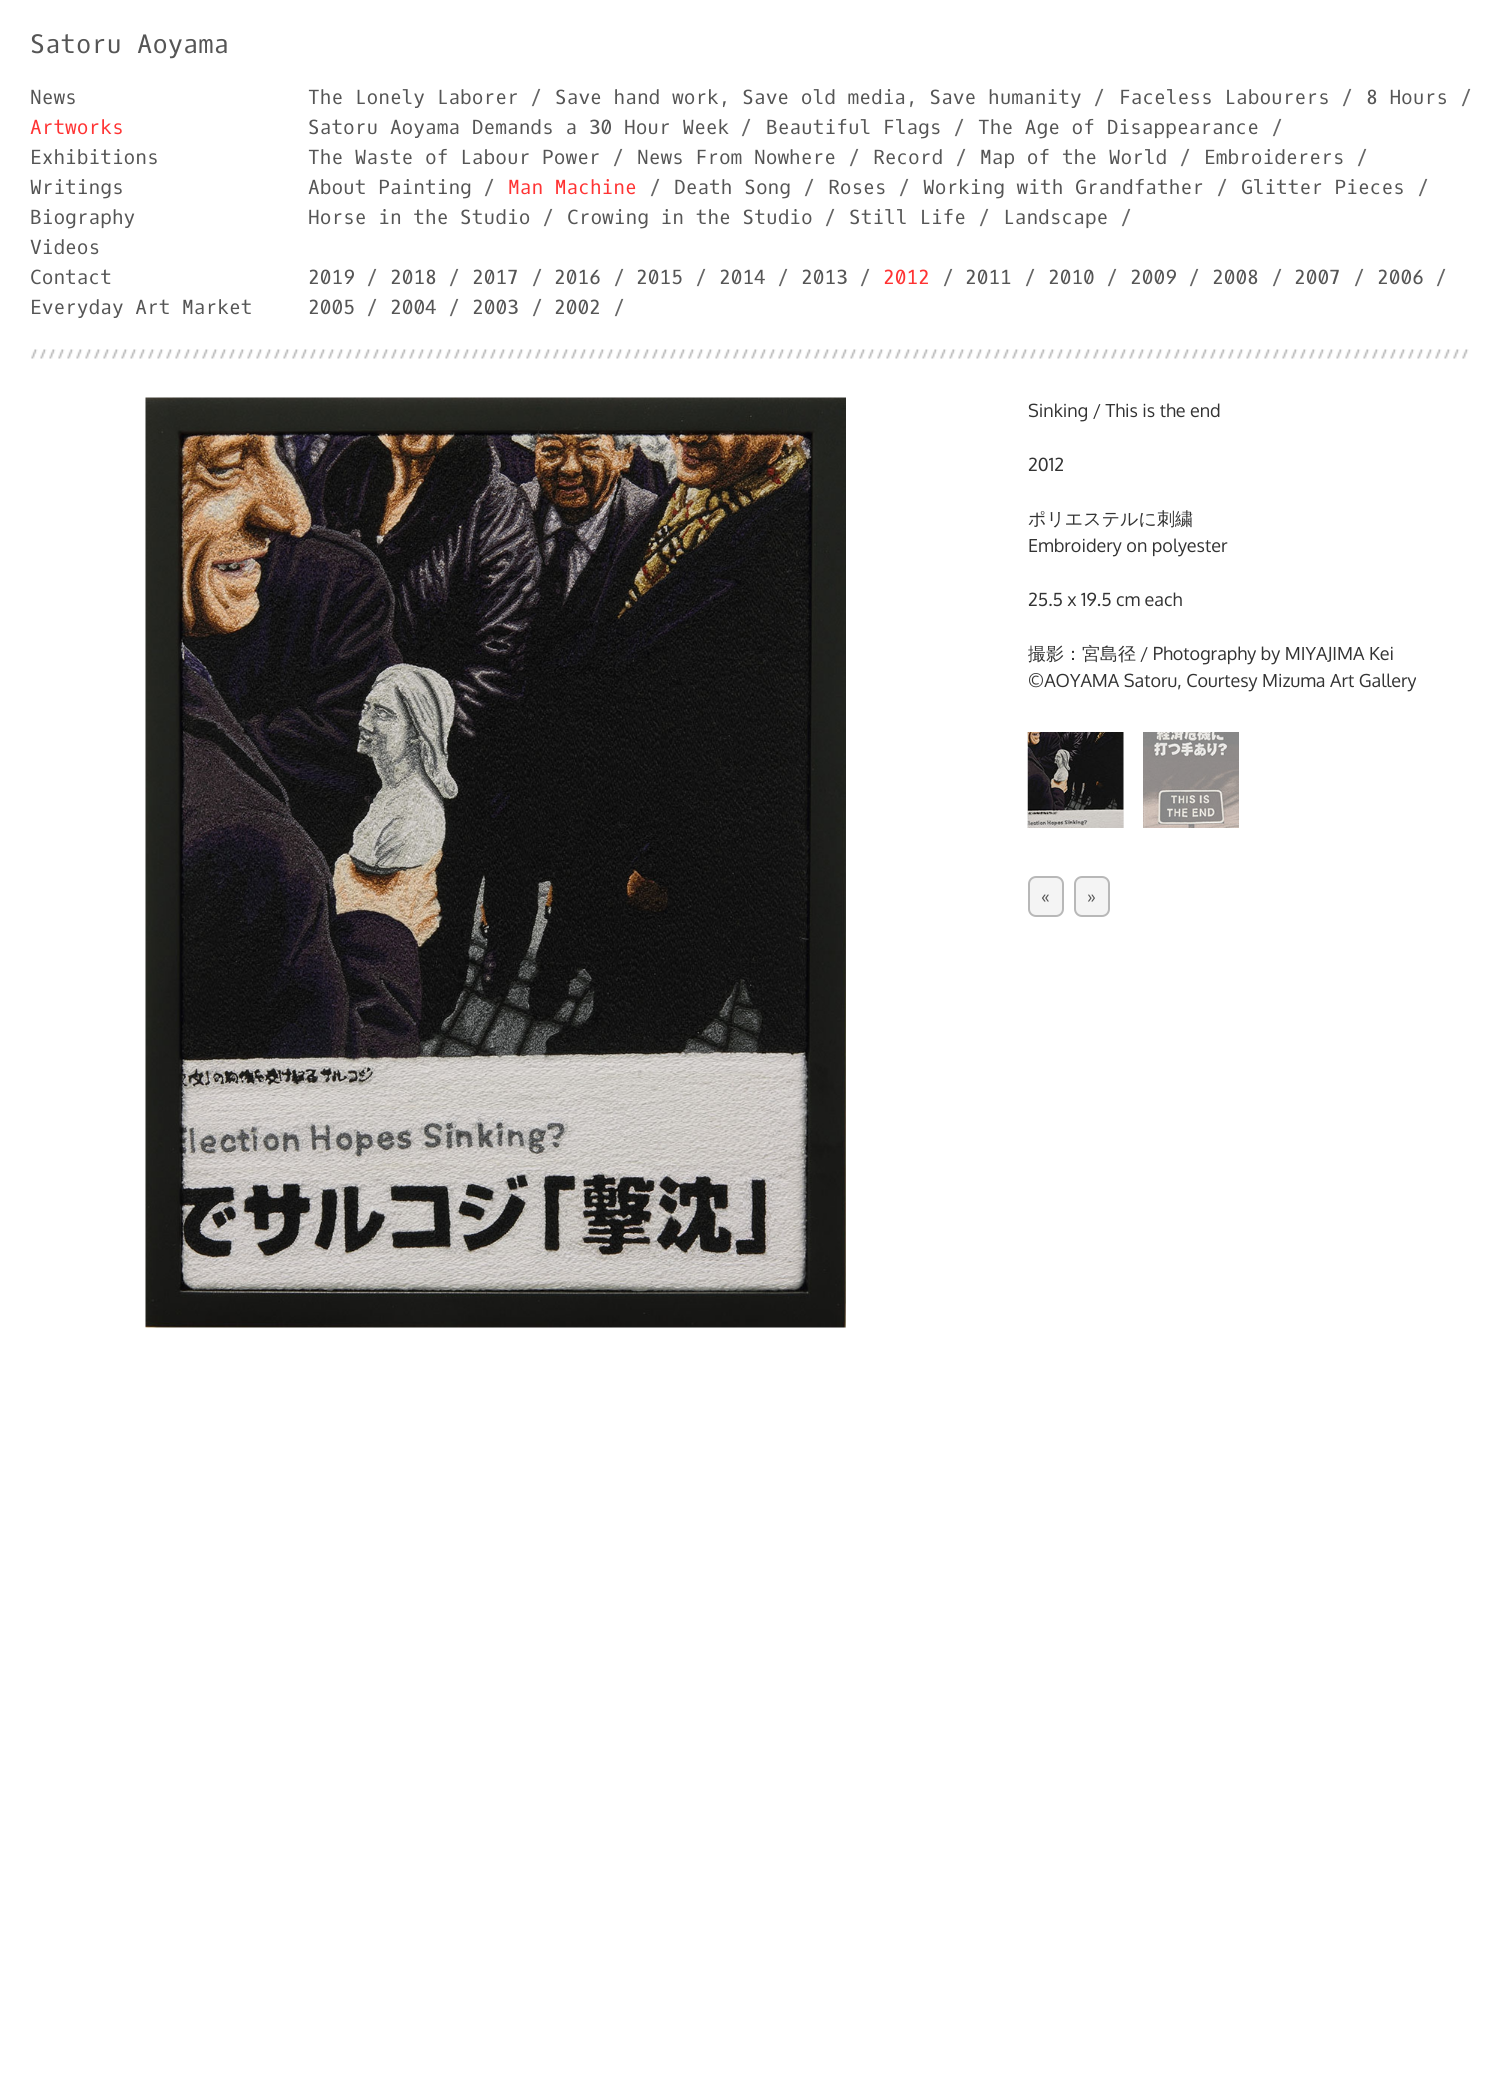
#include <cairo.h>
#include <math.h>
#include <stddef.h>

typedef struct { double x, y; const char *s; } line_t;

static void ink(cairo_t *ctx, unsigned color) {
    cairo_set_source_rgb(ctx, (color >> 16) / 255.0, (color >> 8 & 255) / 255.0, (color & 255) / 255.0);
}

static void round_path(cairo_t *ctx, double x, double y, double w, double h, double r) {
    cairo_new_sub_path(ctx);
    cairo_arc(ctx, x + w - r, y + h - r, r, 0, M_PI / 2);
    cairo_arc(ctx, x + r, y + h - r, r, M_PI / 2, M_PI);
    cairo_arc(ctx, x + r, y + r, r, M_PI, 1.5 * M_PI);
    cairo_arc(ctx, x + w - r, y + r, r, 1.5 * M_PI, 2 * M_PI);
    cairo_close_path(ctx);
}

static void paste(cairo_t *ctx, const char *path, double x, double y, double w, double h) {
    cairo_surface_t *image = cairo_image_surface_create_from_png(path);
    cairo_save(ctx);
    cairo_set_source_surface(ctx, image, x, y);
    cairo_rectangle(ctx, x, y, w, h);
    cairo_fill(ctx);
    cairo_restore(ctx);
    cairo_surface_destroy(image);
}

int main(void) {
    cairo_surface_t *surface = cairo_image_surface_create(CAIRO_FORMAT_RGB24, 1497, 2088);
    cairo_t *ctx = cairo_create(surface);
    cairo_font_options_t *options = cairo_font_options_create();
    cairo_font_options_set_hint_metrics(options, CAIRO_HINT_METRICS_OFF);
    cairo_font_options_set_hint_style(options, CAIRO_HINT_STYLE_NONE);
    cairo_set_font_options(ctx, options);
    cairo_set_miter_limit(ctx, 4);
    ink(ctx, 0xFFFFFF);
    cairo_paint(ctx);
    cairo_select_font_face(ctx, "Oxygen Mono", CAIRO_FONT_SLANT_NORMAL, CAIRO_FONT_WEIGHT_NORMAL);
    cairo_set_font_size(ctx, 25.5);
    ink(ctx, 0x555555);
    cairo_move_to(ctx, 30, 53);
    cairo_show_text(ctx, "Satoru Aoyama");
    cairo_set_font_size(ctx, 19.5);
    cairo_move_to(ctx, 30, 104);
    cairo_show_text(ctx, "News");
    ink(ctx, 0xFF3333);
    cairo_move_to(ctx, 30, 134);
    cairo_show_text(ctx, "Artworks");
    ink(ctx, 0x555555);
    {
        static const line_t items[] = {
            {30, 164, "Exhibitions"},
            {30, 194, "Writings"},
            {30, 224, "Biography"},
            {30, 254, "Videos"},
            {30, 284, "Contact"},
            {30, 314, "Everyday Art Market"},
            {308, 104, "The Lonely Laborer"},
        };
        for (size_t i = 0; i < sizeof items / sizeof *items; i++) {
            cairo_move_to(ctx, items[i].x, items[i].y);
            cairo_show_text(ctx, items[i].s);
        }
    }
    ink(ctx, 0x666666);
    cairo_move_to(ctx, 530, 104);
    cairo_show_text(ctx, "/");
    ink(ctx, 0x555555);
    cairo_move_to(ctx, 555, 104);
    cairo_show_text(ctx, "Save hand work, Save old media, Save humanity");
    ink(ctx, 0x666666);
    cairo_move_to(ctx, 1093, 104);
    cairo_show_text(ctx, "/");
    ink(ctx, 0x555555);
    cairo_move_to(ctx, 1119, 104);
    cairo_show_text(ctx, "Faceless Labourers");
    ink(ctx, 0x666666);
    cairo_move_to(ctx, 1341, 104);
    cairo_show_text(ctx, "/");
    ink(ctx, 0x555555);
    cairo_move_to(ctx, 1366, 104);
    cairo_show_text(ctx, "8 Hours");
    ink(ctx, 0x666666);
    cairo_move_to(ctx, 1460, 104);
    cairo_show_text(ctx, "/");
    ink(ctx, 0x555555);
    cairo_move_to(ctx, 308, 134);
    cairo_show_text(ctx, "Satoru Aoyama Demands a 30 Hour Week");
    ink(ctx, 0x666666);
    cairo_move_to(ctx, 740, 134);
    cairo_show_text(ctx, "/");
    ink(ctx, 0x555555);
    cairo_move_to(ctx, 766, 134);
    cairo_show_text(ctx, "Beautiful Flags");
    ink(ctx, 0x666666);
    cairo_move_to(ctx, 953, 134);
    cairo_show_text(ctx, "/");
    ink(ctx, 0x555555);
    cairo_move_to(ctx, 978, 134);
    cairo_show_text(ctx, "The Age of Disappearance");
    ink(ctx, 0x666666);
    cairo_move_to(ctx, 1271, 134);
    cairo_show_text(ctx, "/");
    ink(ctx, 0x555555);
    cairo_move_to(ctx, 308, 164);
    cairo_show_text(ctx, "The Waste of Labour Power");
    ink(ctx, 0x666666);
    cairo_move_to(ctx, 612, 164);
    cairo_show_text(ctx, "/");
    ink(ctx, 0x555555);
    cairo_move_to(ctx, 637, 164);
    cairo_show_text(ctx, "News From Nowhere");
    ink(ctx, 0x666666);
    cairo_move_to(ctx, 848, 164);
    cairo_show_text(ctx, "/");
    ink(ctx, 0x555555);
    cairo_move_to(ctx, 873, 164);
    cairo_show_text(ctx, "Record");
    ink(ctx, 0x666666);
    cairo_move_to(ctx, 955, 164);
    cairo_show_text(ctx, "/");
    ink(ctx, 0x555555);
    cairo_move_to(ctx, 980, 164);
    cairo_show_text(ctx, "Map of the World");
    ink(ctx, 0x666666);
    cairo_move_to(ctx, 1179, 164);
    cairo_show_text(ctx, "/");
    ink(ctx, 0x555555);
    cairo_move_to(ctx, 1204, 164);
    cairo_show_text(ctx, "Embroiderers");
    ink(ctx, 0x666666);
    cairo_move_to(ctx, 1356, 164);
    cairo_show_text(ctx, "/");
    ink(ctx, 0x555555);
    cairo_move_to(ctx, 308, 194);
    cairo_show_text(ctx, "About Painting");
    ink(ctx, 0x666666);
    cairo_move_to(ctx, 483, 194);
    cairo_show_text(ctx, "/");
    ink(ctx, 0xFF3333);
    cairo_move_to(ctx, 508, 194);
    cairo_show_text(ctx, "Man Machine");
    ink(ctx, 0x666666);
    cairo_move_to(ctx, 649, 194);
    cairo_show_text(ctx, "/");
    ink(ctx, 0x555555);
    cairo_move_to(ctx, 674, 194);
    cairo_show_text(ctx, "Death Song");
    ink(ctx, 0x666666);
    cairo_move_to(ctx, 803, 194);
    cairo_show_text(ctx, "/");
    ink(ctx, 0x555555);
    cairo_move_to(ctx, 828, 194);
    cairo_show_text(ctx, "Roses");
    ink(ctx, 0x666666);
    cairo_move_to(ctx, 898, 194);
    cairo_show_text(ctx, "/");
    ink(ctx, 0x555555);
    cairo_move_to(ctx, 923, 194);
    cairo_show_text(ctx, "Working with Grandfather");
    ink(ctx, 0x666666);
    cairo_move_to(ctx, 1216, 194);
    cairo_show_text(ctx, "/");
    ink(ctx, 0x555555);
    cairo_move_to(ctx, 1241, 194);
    cairo_show_text(ctx, "Glitter Pieces");
    ink(ctx, 0x666666);
    cairo_move_to(ctx, 1417, 194);
    cairo_show_text(ctx, "/");
    ink(ctx, 0x555555);
    cairo_move_to(ctx, 308, 224);
    cairo_show_text(ctx, "Horse in the Studio");
    ink(ctx, 0x666666);
    cairo_move_to(ctx, 542, 224);
    cairo_show_text(ctx, "/");
    ink(ctx, 0x555555);
    cairo_move_to(ctx, 567, 224);
    cairo_show_text(ctx, "Crowing in the Studio");
    ink(ctx, 0x666666);
    cairo_move_to(ctx, 824, 224);
    cairo_show_text(ctx, "/");
    ink(ctx, 0x555555);
    cairo_move_to(ctx, 849, 224);
    cairo_show_text(ctx, "Still Life");
    ink(ctx, 0x666666);
    cairo_move_to(ctx, 978, 224);
    cairo_show_text(ctx, "/");
    ink(ctx, 0x555555);
    cairo_move_to(ctx, 1003, 224);
    cairo_show_text(ctx, "Landscape");
    ink(ctx, 0x666666);
    cairo_move_to(ctx, 1120, 224);
    cairo_show_text(ctx, "/");
    ink(ctx, 0x555555);
    cairo_move_to(ctx, 308, 284);
    cairo_show_text(ctx, "2019");
    ink(ctx, 0x666666);
    cairo_move_to(ctx, 366, 284);
    cairo_show_text(ctx, "/");
    ink(ctx, 0x555555);
    cairo_move_to(ctx, 390, 284);
    cairo_show_text(ctx, "2018");
    ink(ctx, 0x666666);
    cairo_move_to(ctx, 448, 284);
    cairo_show_text(ctx, "/");
    ink(ctx, 0x555555);
    cairo_move_to(ctx, 472, 284);
    cairo_show_text(ctx, "2017");
    ink(ctx, 0x666666);
    cairo_move_to(ctx, 531, 284);
    cairo_show_text(ctx, "/");
    ink(ctx, 0x555555);
    cairo_move_to(ctx, 554, 284);
    cairo_show_text(ctx, "2016");
    ink(ctx, 0x666666);
    cairo_move_to(ctx, 613, 284);
    cairo_show_text(ctx, "/");
    ink(ctx, 0x555555);
    cairo_move_to(ctx, 636, 284);
    cairo_show_text(ctx, "2015");
    ink(ctx, 0x666666);
    cairo_move_to(ctx, 695, 284);
    cairo_show_text(ctx, "/");
    ink(ctx, 0x555555);
    cairo_move_to(ctx, 719, 284);
    cairo_show_text(ctx, "2014");
    ink(ctx, 0x666666);
    cairo_move_to(ctx, 777, 284);
    cairo_show_text(ctx, "/");
    ink(ctx, 0x555555);
    cairo_move_to(ctx, 801, 284);
    cairo_show_text(ctx, "2013");
    ink(ctx, 0x666666);
    cairo_move_to(ctx, 859, 284);
    cairo_show_text(ctx, "/");
    ink(ctx, 0xFF3333);
    cairo_move_to(ctx, 883, 284);
    cairo_show_text(ctx, "2012");
    ink(ctx, 0x666666);
    cairo_move_to(ctx, 942, 284);
    cairo_show_text(ctx, "/");
    ink(ctx, 0x555555);
    cairo_move_to(ctx, 965, 284);
    cairo_show_text(ctx, "2011");
    ink(ctx, 0x666666);
    cairo_move_to(ctx, 1024, 284);
    cairo_show_text(ctx, "/");
    ink(ctx, 0x555555);
    cairo_move_to(ctx, 1048, 284);
    cairo_show_text(ctx, "2010");
    ink(ctx, 0x666666);
    cairo_move_to(ctx, 1106, 284);
    cairo_show_text(ctx, "/");
    ink(ctx, 0x555555);
    cairo_move_to(ctx, 1130, 284);
    cairo_show_text(ctx, "2009");
    ink(ctx, 0x666666);
    cairo_move_to(ctx, 1188, 284);
    cairo_show_text(ctx, "/");
    ink(ctx, 0x555555);
    cairo_move_to(ctx, 1212, 284);
    cairo_show_text(ctx, "2008");
    ink(ctx, 0x666666);
    cairo_move_to(ctx, 1271, 284);
    cairo_show_text(ctx, "/");
    ink(ctx, 0x555555);
    cairo_move_to(ctx, 1294, 284);
    cairo_show_text(ctx, "2007");
    ink(ctx, 0x666666);
    cairo_move_to(ctx, 1353, 284);
    cairo_show_text(ctx, "/");
    ink(ctx, 0x555555);
    cairo_move_to(ctx, 1377, 284);
    cairo_show_text(ctx, "2006");
    ink(ctx, 0x666666);
    cairo_move_to(ctx, 1435, 284);
    cairo_show_text(ctx, "/");
    ink(ctx, 0x555555);
    cairo_move_to(ctx, 308, 314);
    cairo_show_text(ctx, "2005");
    ink(ctx, 0x666666);
    cairo_move_to(ctx, 366, 314);
    cairo_show_text(ctx, "/");
    ink(ctx, 0x555555);
    cairo_move_to(ctx, 390, 314);
    cairo_show_text(ctx, "2004");
    ink(ctx, 0x666666);
    cairo_move_to(ctx, 448, 314);
    cairo_show_text(ctx, "/");
    ink(ctx, 0x555555);
    cairo_move_to(ctx, 472, 314);
    cairo_show_text(ctx, "2003");
    ink(ctx, 0x666666);
    cairo_move_to(ctx, 531, 314);
    cairo_show_text(ctx, "/");
    ink(ctx, 0x555555);
    cairo_move_to(ctx, 554, 314);
    cairo_show_text(ctx, "2002");
    ink(ctx, 0x666666);
    cairo_move_to(ctx, 613, 314);
    cairo_show_text(ctx, "/");
    paste(ctx, "media/1.png", 31, 349, 1438, 10);
    paste(ctx, "media/2.png", 145, 397, 701, 931);
    cairo_select_font_face(ctx, "Oxygen", CAIRO_FONT_SLANT_NORMAL, CAIRO_FONT_WEIGHT_NORMAL);
    cairo_set_font_size(ctx, 18);
    ink(ctx, 0x333333);
    cairo_move_to(ctx, 1028, 417);
    cairo_show_text(ctx, "Sinking / This is the end");
    cairo_move_to(ctx, 1028, 471);
    cairo_show_text(ctx, "2012");
    cairo_select_font_face(ctx, "WenQuanYi Zen Hei Medium", CAIRO_FONT_SLANT_NORMAL, CAIRO_FONT_WEIGHT_NORMAL);
    cairo_move_to(ctx, 1028, 525);
    cairo_show_text(ctx, "ポリエステルに刺繍");
    cairo_select_font_face(ctx, "Oxygen", CAIRO_FONT_SLANT_NORMAL, CAIRO_FONT_WEIGHT_NORMAL);
    cairo_move_to(ctx, 1028, 552);
    cairo_show_text(ctx, "Embroidery on polyester");
    cairo_move_to(ctx, 1028, 606);
    cairo_show_text(ctx, "25.5 x 19.5 cm each");
    cairo_select_font_face(ctx, "WenQuanYi Zen Hei Medium", CAIRO_FONT_SLANT_NORMAL, CAIRO_FONT_WEIGHT_NORMAL);
    cairo_move_to(ctx, 1028, 660);
    cairo_show_text(ctx, "撮影：宮島径");
    cairo_select_font_face(ctx, "Oxygen", CAIRO_FONT_SLANT_NORMAL, CAIRO_FONT_WEIGHT_NORMAL);
    cairo_move_to(ctx, 1140, 660);
    cairo_show_text(ctx, "/ Photography by MIYAJIMA Kei");
    cairo_move_to(ctx, 1028, 687);
    cairo_show_text(ctx, "©AOYAMA Satoru, Courtesy Mizuma Art Gallery");
    paste(ctx, "media/3.png", 1027, 732, 97, 96);
    paste(ctx, "media/4.png", 1143, 732, 96, 96);
    ink(ctx, 0xF4F4F4);
    round_path(ctx, 1029, 877, 34, 39, 7);
    cairo_fill_preserve(ctx);
    ink(ctx, 0xB8B8B8);
    cairo_stroke(ctx);
    ink(ctx, 0x555555);
    cairo_move_to(ctx, 1041, 903);
    cairo_show_text(ctx, "«");
    ink(ctx, 0xF4F4F4);
    round_path(ctx, 1075, 877, 34, 39, 7);
    cairo_fill_preserve(ctx);
    ink(ctx, 0xB8B8B8);
    cairo_stroke(ctx);
    ink(ctx, 0x555555);
    cairo_move_to(ctx, 1087, 903);
    cairo_show_text(ctx, "»");
    cairo_surface_write_to_png(surface, "image.png");
    cairo_font_options_destroy(options);
    cairo_destroy(ctx);
    cairo_surface_destroy(surface);
    return 0;
}
